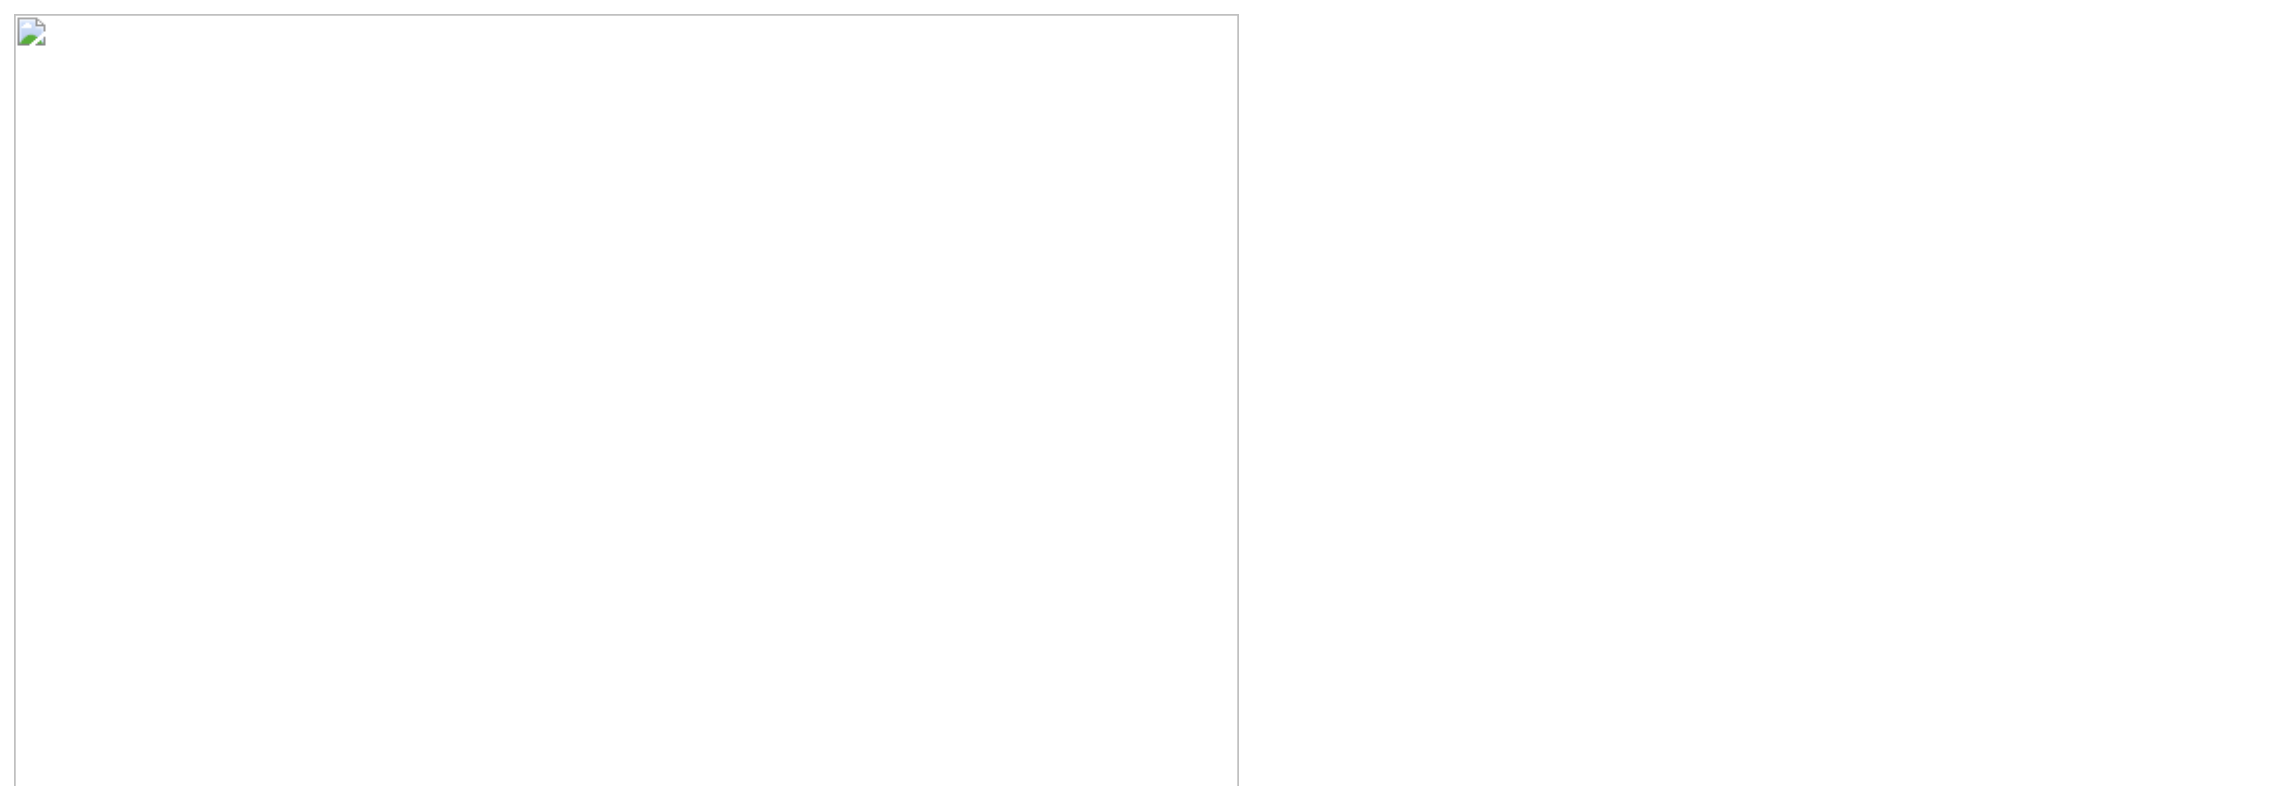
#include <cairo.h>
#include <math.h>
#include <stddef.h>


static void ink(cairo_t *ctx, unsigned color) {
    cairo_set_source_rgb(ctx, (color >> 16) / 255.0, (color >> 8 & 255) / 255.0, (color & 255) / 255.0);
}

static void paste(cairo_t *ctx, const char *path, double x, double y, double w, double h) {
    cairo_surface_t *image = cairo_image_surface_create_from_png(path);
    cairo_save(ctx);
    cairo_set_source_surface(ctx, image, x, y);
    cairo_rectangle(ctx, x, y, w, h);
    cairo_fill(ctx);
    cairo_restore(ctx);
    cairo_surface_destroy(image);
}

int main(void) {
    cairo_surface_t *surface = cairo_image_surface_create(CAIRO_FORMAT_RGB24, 2285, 786);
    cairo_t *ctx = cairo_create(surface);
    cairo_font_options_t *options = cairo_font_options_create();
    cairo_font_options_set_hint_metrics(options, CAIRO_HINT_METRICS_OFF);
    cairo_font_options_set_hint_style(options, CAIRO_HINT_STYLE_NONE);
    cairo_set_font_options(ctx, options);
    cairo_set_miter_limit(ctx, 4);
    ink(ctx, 0xFFFFFF);
    cairo_paint(ctx);
    paste(ctx, "media/1.png", 14, 14, 1225, 772);
    cairo_surface_write_to_png(surface, "image.png");
    cairo_font_options_destroy(options);
    cairo_destroy(ctx);
    cairo_surface_destroy(surface);
    return 0;
}
